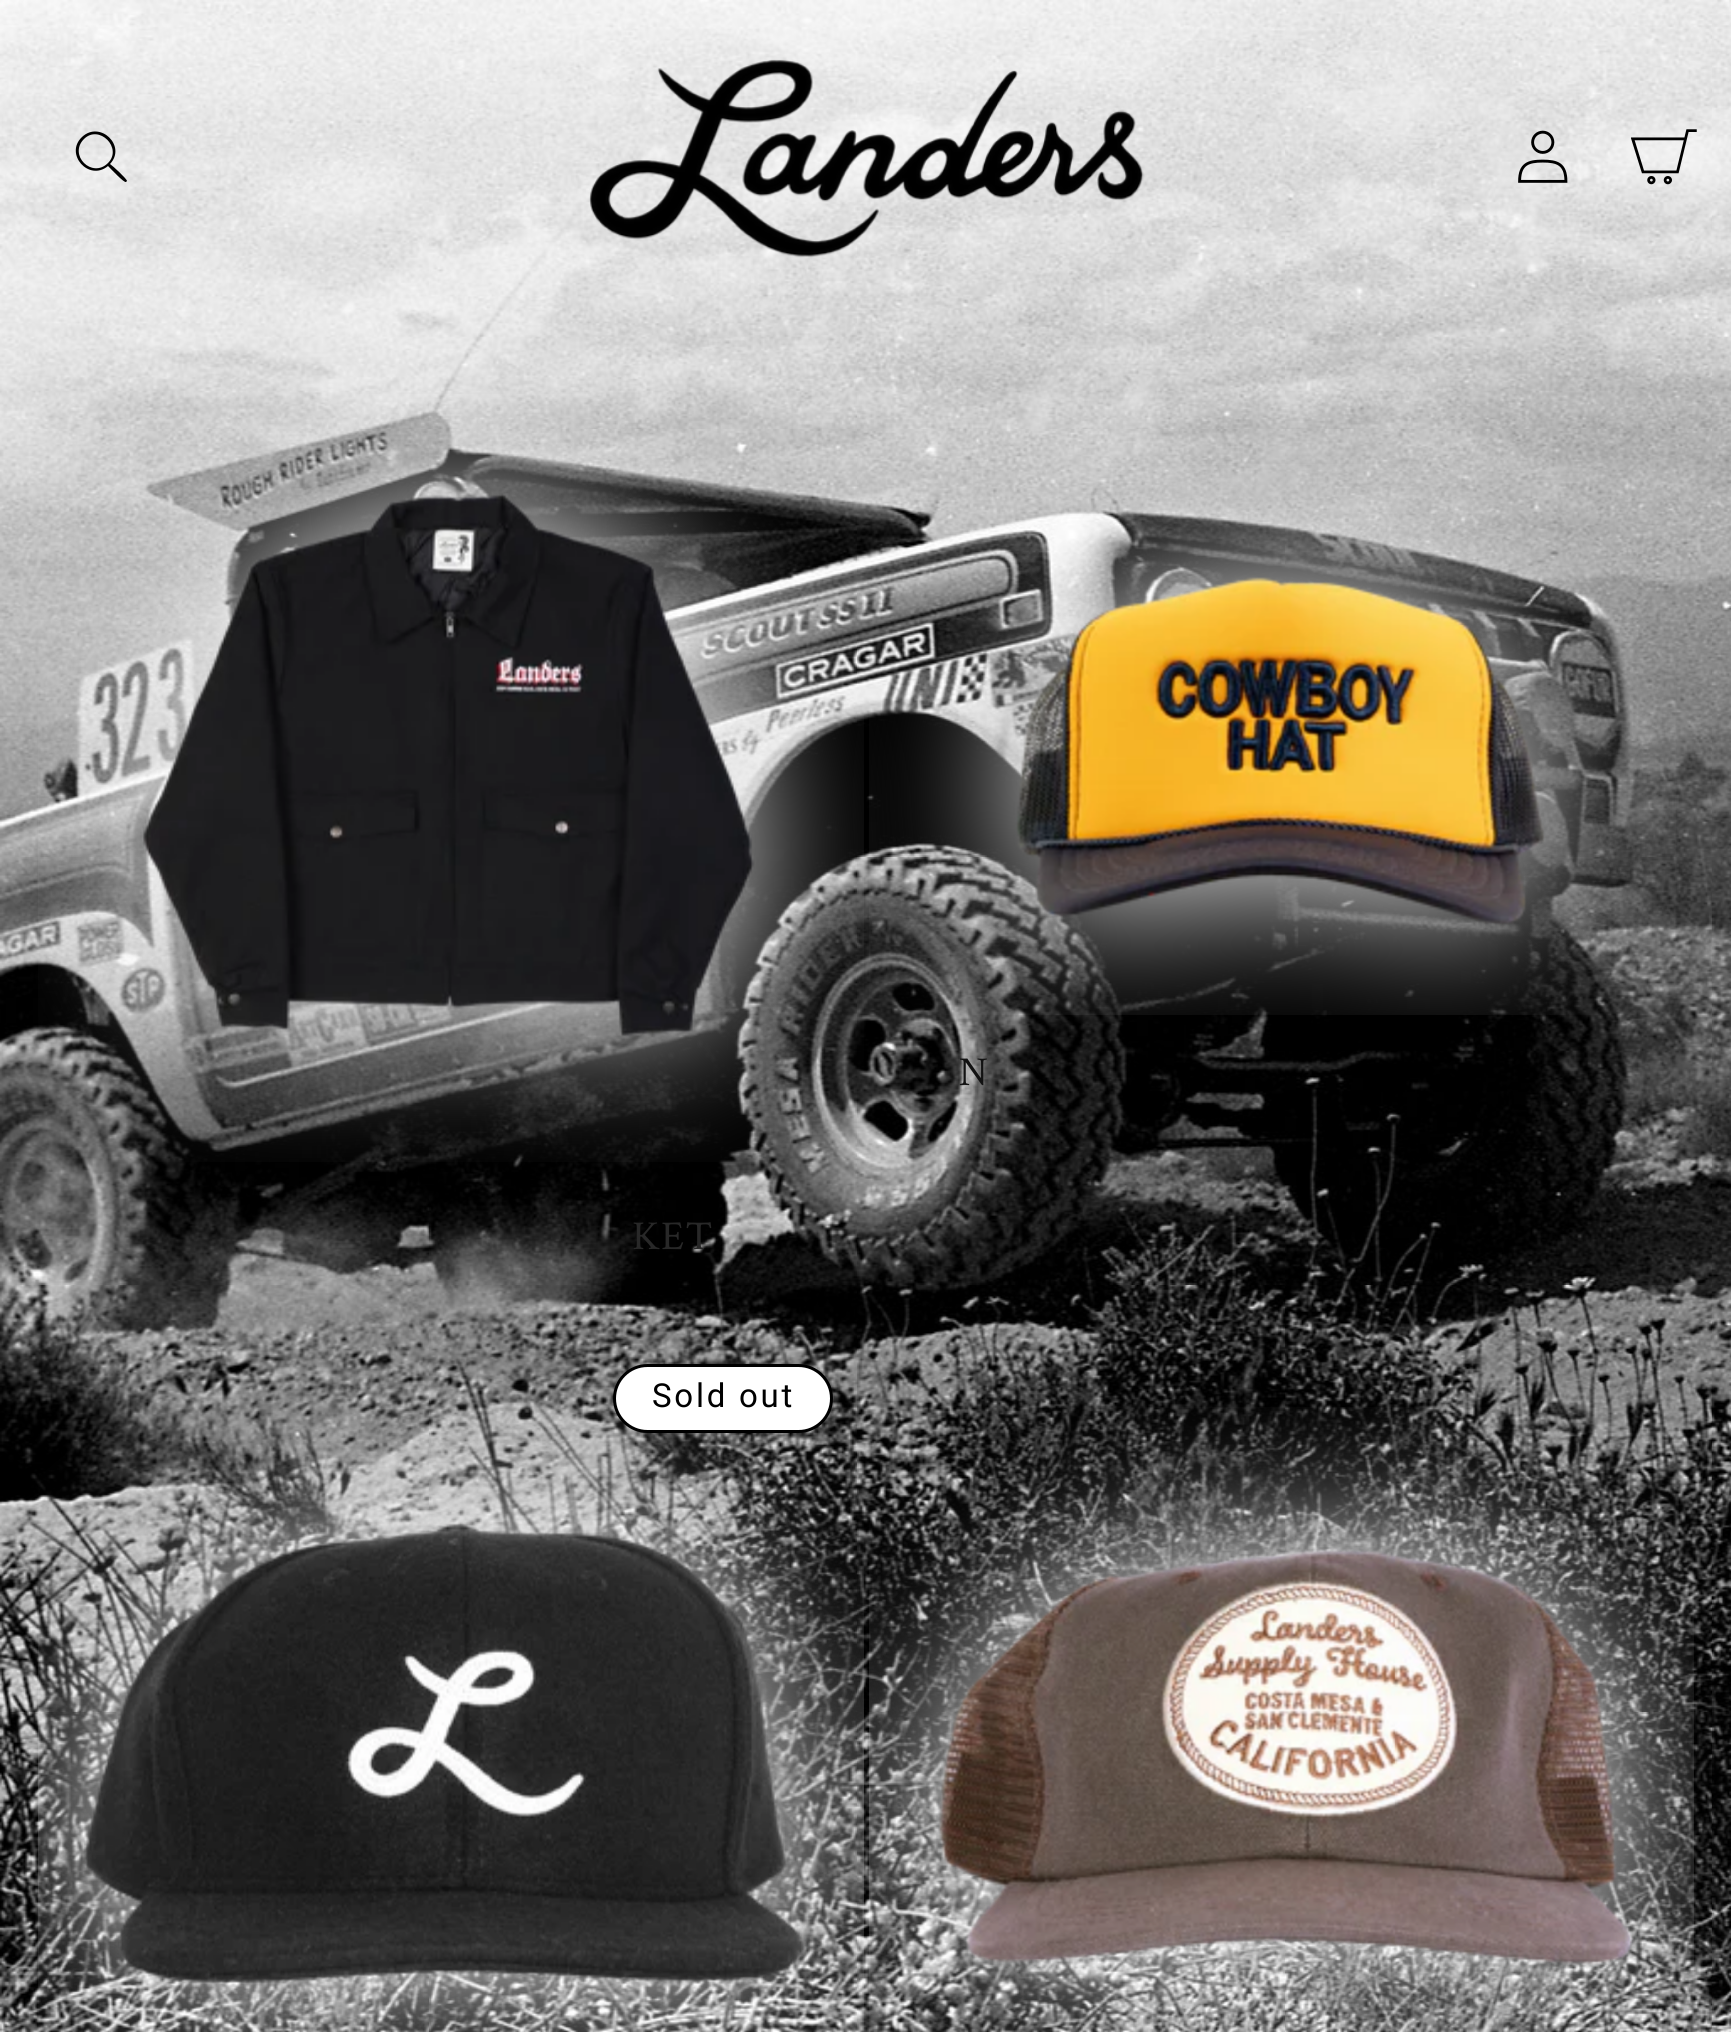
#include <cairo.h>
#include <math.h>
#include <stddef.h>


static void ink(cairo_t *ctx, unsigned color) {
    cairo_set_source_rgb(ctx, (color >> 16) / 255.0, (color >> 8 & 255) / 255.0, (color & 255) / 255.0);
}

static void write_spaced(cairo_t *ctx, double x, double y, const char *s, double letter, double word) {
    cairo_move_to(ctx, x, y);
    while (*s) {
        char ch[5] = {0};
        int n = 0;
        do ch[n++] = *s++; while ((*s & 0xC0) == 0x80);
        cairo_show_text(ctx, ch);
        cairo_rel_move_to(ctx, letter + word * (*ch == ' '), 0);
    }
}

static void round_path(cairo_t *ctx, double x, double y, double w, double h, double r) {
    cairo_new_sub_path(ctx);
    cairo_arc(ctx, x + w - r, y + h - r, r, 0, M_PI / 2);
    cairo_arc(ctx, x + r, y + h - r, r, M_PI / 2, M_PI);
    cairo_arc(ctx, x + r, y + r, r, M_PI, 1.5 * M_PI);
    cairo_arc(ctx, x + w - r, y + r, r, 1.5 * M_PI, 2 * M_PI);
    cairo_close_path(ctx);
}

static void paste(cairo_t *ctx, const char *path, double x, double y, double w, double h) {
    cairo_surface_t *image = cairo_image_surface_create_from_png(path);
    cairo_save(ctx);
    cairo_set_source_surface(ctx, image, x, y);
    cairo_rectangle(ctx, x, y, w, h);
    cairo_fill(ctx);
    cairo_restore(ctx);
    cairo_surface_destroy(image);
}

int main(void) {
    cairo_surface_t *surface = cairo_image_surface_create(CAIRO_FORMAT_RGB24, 1731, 2032);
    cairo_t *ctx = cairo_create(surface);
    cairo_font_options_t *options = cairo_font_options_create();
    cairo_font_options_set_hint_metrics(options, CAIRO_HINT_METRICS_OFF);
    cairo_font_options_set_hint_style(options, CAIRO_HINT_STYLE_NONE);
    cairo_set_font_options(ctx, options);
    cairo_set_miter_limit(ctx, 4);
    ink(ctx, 0xFFFFFF);
    cairo_paint(ctx);
    paste(ctx, "media/1.png", 0, 0, 1731, 2032);
    ink(ctx, 0x000000);
    cairo_set_fill_rule(ctx, CAIRO_FILL_RULE_EVEN_ODD);
    cairo_new_path(ctx);
    cairo_move_to(ctx, 108, 163);
    cairo_curve_to(ctx, 92, 179, 68, 155, 84, 139);
    cairo_curve_to(ctx, 99, 124, 123, 148, 108, 163);
    cairo_close_path(ctx);
    cairo_move_to(ctx, 108, 166);
    cairo_curve_to(ctx, 89, 182, 64, 154, 82, 137);
    cairo_curve_to(ctx, 100, 120, 127, 146, 110, 164);
    cairo_curve_to(ctx, 113, 166, 127, 179, 127, 181);
    cairo_line_to(ctx, 126, 182);
    cairo_curve_to(ctx, 124, 183, 111, 169, 108, 166);
    cairo_close_path(ctx);
    cairo_fill(ctx);
    paste(ctx, "media/2.png", 589, 59, 555, 198);
    paste(ctx, "media/3.png", 1518, 130, 50, 53);
    paste(ctx, "media/4.png", 1631, 129, 66, 56);
    paste(ctx, "media/5.png", 869, 464, 807, 551);
    cairo_select_font_face(ctx, "Crimson Text", CAIRO_FONT_SLANT_NORMAL, CAIRO_FONT_WEIGHT_NORMAL);
    cairo_set_font_size(ctx, 41);
    ink(ctx, 0x121212);
    write_spaced(ctx, 959, 1085, "N", 1.5, 0);
    paste(ctx, "media/6.png", 38, 394, 826, 768);
    ink(ctx, 0x282828);
    write_spaced(ctx, 632, 1249, "KET", 1.5, 0);
    paste(ctx, "media/7.png", 38, 1384, 826, 648);
    ink(ctx, 0xFFFFFF);
    round_path(ctx, 614.5, 1365.5, 217, 66, 33);
    cairo_fill_preserve(ctx);
    ink(ctx, 0x000000);
    cairo_set_line_width(ctx, 3);
    cairo_stroke(ctx);
    cairo_select_font_face(ctx, "Roboto", CAIRO_FONT_SLANT_NORMAL, CAIRO_FONT_WEIGHT_NORMAL);
    cairo_set_font_size(ctx, 33);
    write_spaced(ctx, 652, 1407, "Sold out", 2.75, 0);
    paste(ctx, "media/8.png", 869, 1407, 825, 625);
    cairo_surface_write_to_png(surface, "image.png");
    cairo_font_options_destroy(options);
    cairo_destroy(ctx);
    cairo_surface_destroy(surface);
    return 0;
}
